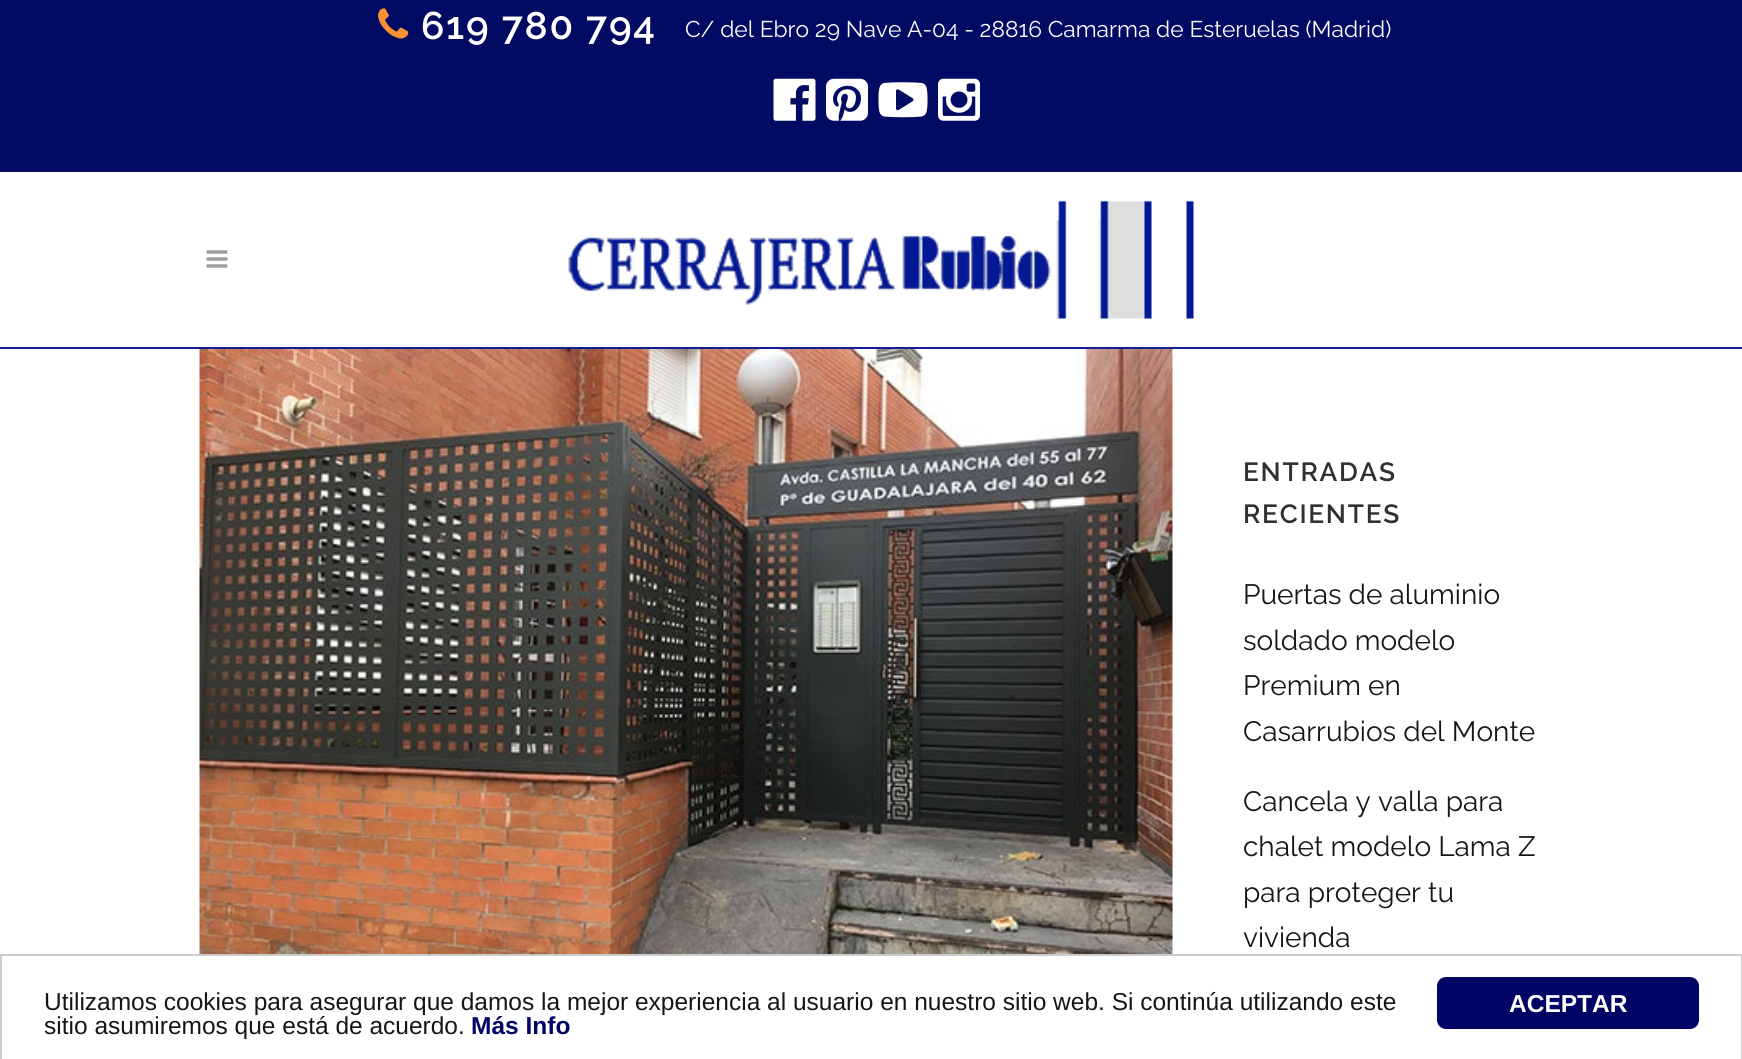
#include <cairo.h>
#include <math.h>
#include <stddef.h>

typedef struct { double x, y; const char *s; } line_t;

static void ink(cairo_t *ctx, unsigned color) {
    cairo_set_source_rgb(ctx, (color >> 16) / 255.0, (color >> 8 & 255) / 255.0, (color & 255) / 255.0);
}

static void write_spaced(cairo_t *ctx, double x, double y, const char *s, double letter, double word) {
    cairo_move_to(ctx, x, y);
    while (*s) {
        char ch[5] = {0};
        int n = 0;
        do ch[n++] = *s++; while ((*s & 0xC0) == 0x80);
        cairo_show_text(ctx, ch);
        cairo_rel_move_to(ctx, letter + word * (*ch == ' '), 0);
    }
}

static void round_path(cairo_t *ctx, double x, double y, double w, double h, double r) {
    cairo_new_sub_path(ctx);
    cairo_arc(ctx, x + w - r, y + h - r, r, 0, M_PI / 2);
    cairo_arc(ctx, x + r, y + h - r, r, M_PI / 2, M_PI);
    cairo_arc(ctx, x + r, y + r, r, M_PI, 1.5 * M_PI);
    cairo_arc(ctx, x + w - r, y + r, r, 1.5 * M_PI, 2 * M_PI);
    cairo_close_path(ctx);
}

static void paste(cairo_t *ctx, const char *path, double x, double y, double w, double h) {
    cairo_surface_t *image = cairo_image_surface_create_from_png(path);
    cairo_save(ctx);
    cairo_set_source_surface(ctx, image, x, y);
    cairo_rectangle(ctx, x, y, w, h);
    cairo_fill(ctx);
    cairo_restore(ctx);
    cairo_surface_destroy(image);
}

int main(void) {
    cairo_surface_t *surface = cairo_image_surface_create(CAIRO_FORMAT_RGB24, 1742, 1059);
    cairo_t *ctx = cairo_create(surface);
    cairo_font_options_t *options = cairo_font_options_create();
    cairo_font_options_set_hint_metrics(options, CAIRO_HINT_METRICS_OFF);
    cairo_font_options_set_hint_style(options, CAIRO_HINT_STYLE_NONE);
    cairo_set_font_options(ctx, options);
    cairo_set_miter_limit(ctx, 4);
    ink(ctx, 0xFFFFFF);
    cairo_paint(ctx);
    ink(ctx, 0x010B63);
    cairo_rectangle(ctx, 0, 0, 1742, 172);
    cairo_fill(ctx);
    paste(ctx, "media/1.png", 378, 8, 31, 31);
    cairo_select_font_face(ctx, "Raleway SemiBold", CAIRO_FONT_SLANT_NORMAL, CAIRO_FONT_WEIGHT_NORMAL);
    cairo_set_font_size(ctx, 38.5);
    ink(ctx, 0xFFFFFF);
    write_spaced(ctx, 421, 39, "619 780 794", 1.75, 0);
    cairo_select_font_face(ctx, "Raleway", CAIRO_FONT_SLANT_NORMAL, CAIRO_FONT_WEIGHT_NORMAL);
    cairo_set_font_size(ctx, 22.75);
    cairo_move_to(ctx, 685, 37);
    cairo_show_text(ctx, "C/ del Ebro 29 Nave A-04 - 28816 Camarma de Esteruelas (Madrid)");
    paste(ctx, "media/2.png", 773, 78, 43, 43);
    paste(ctx, "media/3.png", 826, 78, 42, 43);
    paste(ctx, "media/4.png", 878, 82, 50, 36);
    paste(ctx, "media/5.png", 938, 78, 42, 43);
    ink(ctx, 0x131E91);
    cairo_rectangle(ctx, 0, 347, 1742, 2);
    cairo_fill(ctx);
    paste(ctx, "media/6.png", 206, 250, 22, 18);
    paste(ctx, "media/7.png", 568, 200, 626, 119);
    paste(ctx, "media/8.png", 199, 349, 974, 605);
    cairo_select_font_face(ctx, "Raleway SemiBold", CAIRO_FONT_SLANT_NORMAL, CAIRO_FONT_WEIGHT_NORMAL);
    cairo_set_font_size(ctx, 26.25);
    ink(ctx, 0x303030);
    write_spaced(ctx, 1243, 481, "ENTRADAS", 1.75, 0);
    write_spaced(ctx, 1243, 523, "RECIENTES", 1.75, 0);
    cairo_select_font_face(ctx, "Raleway", CAIRO_FONT_SLANT_NORMAL, CAIRO_FONT_WEIGHT_NORMAL);
    cairo_set_font_size(ctx, 28);
    ink(ctx, 0x161616);
    {
        static const line_t items[] = {
            {1243, 604, "Puertas de aluminio"},
            {1243, 650, "soldado modelo"},
            {1243, 695, "Premium en"},
            {1243, 741, "Casarrubios del Monte"},
            {1243, 811, "Cancela y valla para"},
            {1243, 856, "chalet modelo Lama Z"},
            {1243, 902, "para proteger tu"},
            {1243, 947, "vivienda"},
        };
        for (size_t i = 0; i < sizeof items / sizeof *items; i++) {
            cairo_move_to(ctx, items[i].x, items[i].y);
            cairo_show_text(ctx, items[i].s);
        }
    }
    cairo_rectangle(ctx, 1, 955, 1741, 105);
    ink(ctx, 0xCCCCCC);
    cairo_stroke(ctx);
    cairo_select_font_face(ctx, "Liberation Sans", CAIRO_FONT_SLANT_NORMAL, CAIRO_FONT_WEIGHT_NORMAL);
    cairo_set_font_size(ctx, 24.5);
    ink(ctx, 0x161616);
    cairo_move_to(ctx, 44, 1010);
    cairo_show_text(ctx, "Utilizamos cookies para asegurar que damos la mejor experiencia al usuario en nuestro sitio web. Si continúa utilizando este");
    cairo_move_to(ctx, 44, 1034);
    cairo_show_text(ctx, "sitio asumiremos que está de acuerdo.");
    cairo_select_font_face(ctx, "Liberation Sans", CAIRO_FONT_SLANT_NORMAL, CAIRO_FONT_WEIGHT_BOLD);
    ink(ctx, 0x000464);
    cairo_move_to(ctx, 471, 1034);
    cairo_show_text(ctx, "Más Info");
    round_path(ctx, 1437, 977, 262, 52, 9);
    cairo_fill(ctx);
    ink(ctx, 0xFFFFFF);
    cairo_move_to(ctx, 1509, 1012);
    cairo_show_text(ctx, "ACEPTAR");
    cairo_surface_write_to_png(surface, "image.png");
    cairo_font_options_destroy(options);
    cairo_destroy(ctx);
    cairo_surface_destroy(surface);
    return 0;
}
